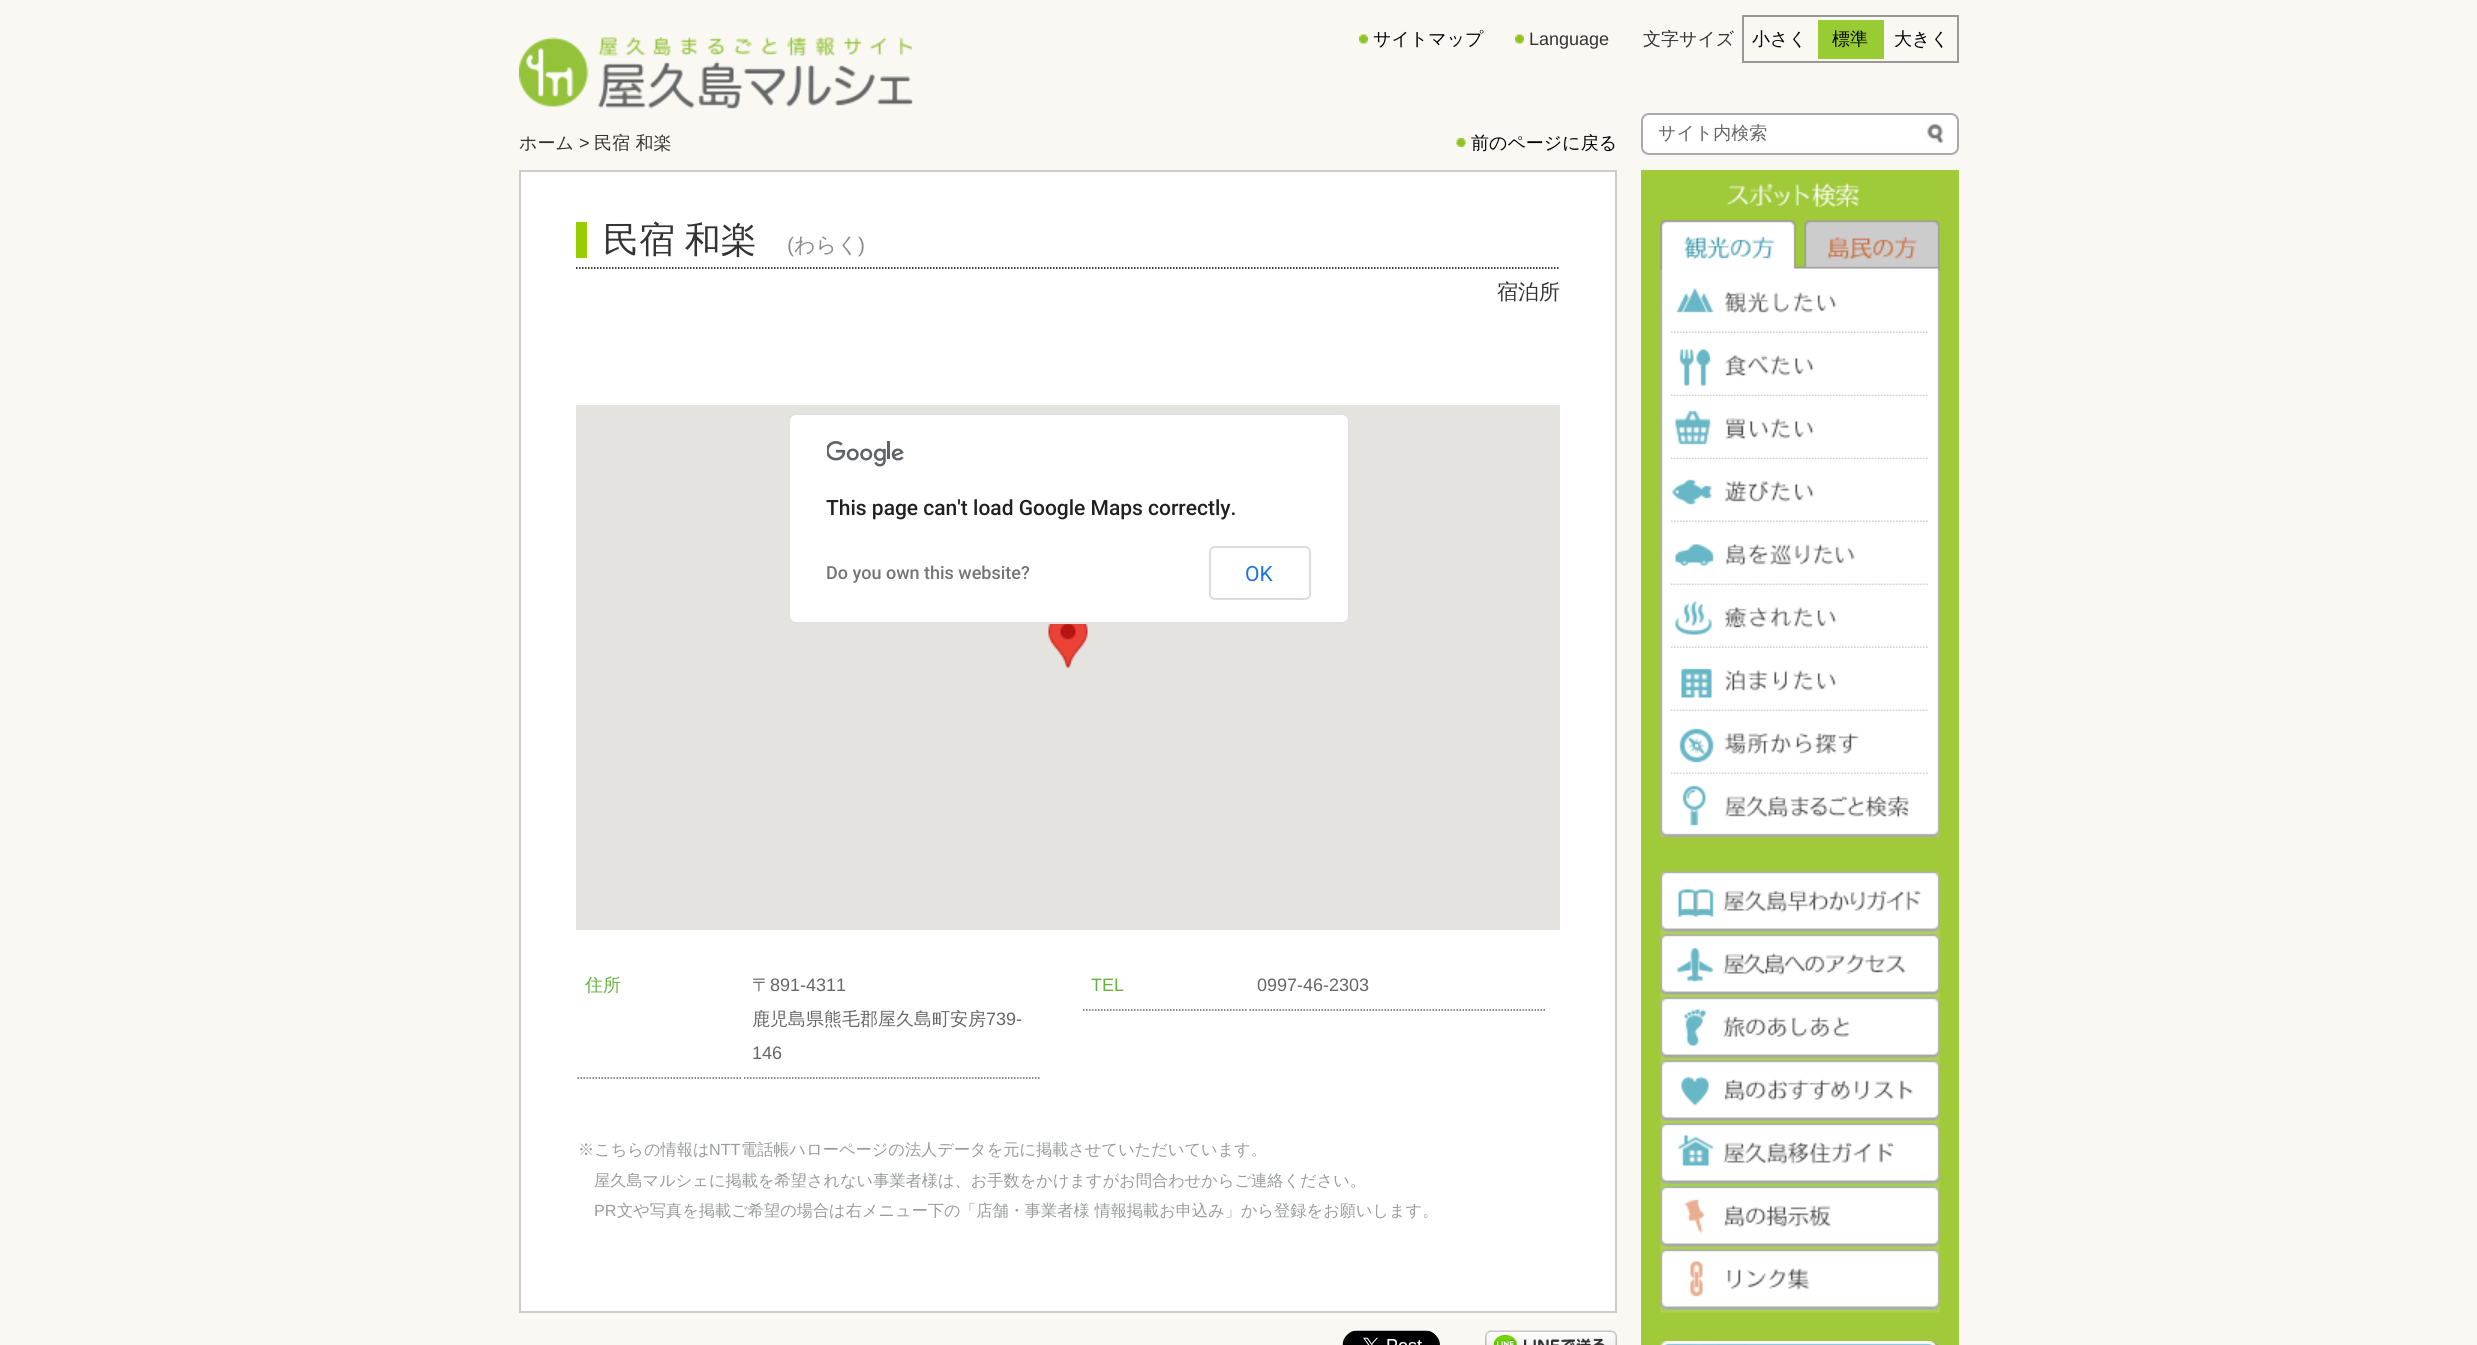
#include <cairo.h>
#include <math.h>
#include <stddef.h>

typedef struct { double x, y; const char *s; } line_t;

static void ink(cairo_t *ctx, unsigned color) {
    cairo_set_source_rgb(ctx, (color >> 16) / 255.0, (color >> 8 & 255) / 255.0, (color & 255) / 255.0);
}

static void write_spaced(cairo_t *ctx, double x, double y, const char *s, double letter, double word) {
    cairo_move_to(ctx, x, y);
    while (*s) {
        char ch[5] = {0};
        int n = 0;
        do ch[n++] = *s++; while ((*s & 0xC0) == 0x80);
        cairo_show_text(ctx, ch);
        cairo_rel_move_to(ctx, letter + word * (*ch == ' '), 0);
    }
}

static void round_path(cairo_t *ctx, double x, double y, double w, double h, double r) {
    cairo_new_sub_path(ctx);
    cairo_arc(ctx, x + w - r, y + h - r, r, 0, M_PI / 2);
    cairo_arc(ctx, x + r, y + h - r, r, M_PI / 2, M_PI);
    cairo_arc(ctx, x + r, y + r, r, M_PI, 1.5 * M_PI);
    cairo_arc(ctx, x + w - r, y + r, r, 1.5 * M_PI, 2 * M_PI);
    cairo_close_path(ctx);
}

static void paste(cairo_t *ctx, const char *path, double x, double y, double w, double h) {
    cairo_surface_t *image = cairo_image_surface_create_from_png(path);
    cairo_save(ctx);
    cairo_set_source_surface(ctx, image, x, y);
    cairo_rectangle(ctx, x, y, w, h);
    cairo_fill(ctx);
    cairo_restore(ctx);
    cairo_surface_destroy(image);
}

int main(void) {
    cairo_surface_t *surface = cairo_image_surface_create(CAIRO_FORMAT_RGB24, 2477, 1345);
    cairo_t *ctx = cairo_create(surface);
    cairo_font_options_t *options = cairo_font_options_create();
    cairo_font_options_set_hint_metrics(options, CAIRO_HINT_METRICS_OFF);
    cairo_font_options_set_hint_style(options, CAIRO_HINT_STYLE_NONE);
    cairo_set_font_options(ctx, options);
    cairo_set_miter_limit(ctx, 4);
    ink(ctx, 0xF9F8F3);
    cairo_paint(ctx);
    paste(ctx, "media/1.png", 519, 37, 394, 72);
    paste(ctx, "media/2.png", 1359, 34, 9, 10);
    cairo_select_font_face(ctx, "WenQuanYi Zen Hei Medium", CAIRO_FONT_SLANT_NORMAL, CAIRO_FONT_WEIGHT_NORMAL);
    cairo_set_font_size(ctx, 18);
    ink(ctx, 0x040404);
    cairo_move_to(ctx, 1373, 45);
    cairo_show_text(ctx, "サイトマップ");
    paste(ctx, "media/2.png", 1515, 34, 9, 10);
    cairo_select_font_face(ctx, "Liberation Sans", CAIRO_FONT_SLANT_NORMAL, CAIRO_FONT_WEIGHT_NORMAL);
    ink(ctx, 0x333333);
    cairo_move_to(ctx, 1529, 45);
    cairo_show_text(ctx, "Language");
    cairo_select_font_face(ctx, "WenQuanYi Zen Hei Medium", CAIRO_FONT_SLANT_NORMAL, CAIRO_FONT_WEIGHT_NORMAL);
    cairo_move_to(ctx, 1643, 45);
    cairo_show_text(ctx, "文字サイズ");
    cairo_rectangle(ctx, 1743, 16, 215, 46);
    ink(ctx, 0x999999);
    cairo_stroke(ctx);
    ink(ctx, 0x040404);
    cairo_move_to(ctx, 1752, 45);
    cairo_show_text(ctx, "小さく");
    ink(ctx, 0x99CC33);
    cairo_rectangle(ctx, 1818, 20, 66, 39);
    cairo_fill(ctx);
    ink(ctx, 0x040404);
    cairo_move_to(ctx, 1832, 45);
    cairo_show_text(ctx, "標準");
    cairo_move_to(ctx, 1894, 45);
    cairo_show_text(ctx, "大きく");
    ink(ctx, 0x333333);
    cairo_move_to(ctx, 519, 149);
    cairo_show_text(ctx, "ホーム");
    cairo_select_font_face(ctx, "Liberation Sans", CAIRO_FONT_SLANT_NORMAL, CAIRO_FONT_WEIGHT_NORMAL);
    cairo_move_to(ctx, 579, 149);
    cairo_show_text(ctx, ">");
    cairo_select_font_face(ctx, "WenQuanYi Zen Hei Medium", CAIRO_FONT_SLANT_NORMAL, CAIRO_FONT_WEIGHT_NORMAL);
    cairo_move_to(ctx, 594, 149);
    cairo_show_text(ctx, "民宿 和楽");
    paste(ctx, "media/3.png", 1456, 138, 10, 9);
    ink(ctx, 0x040404);
    cairo_move_to(ctx, 1471, 149);
    cairo_show_text(ctx, "前のページに戻る");
    ink(ctx, 0xFFFFFF);
    round_path(ctx, 1642, 114, 316, 40, 7);
    cairo_fill_preserve(ctx);
    ink(ctx, 0xAAAAAA);
    cairo_stroke(ctx);
    ink(ctx, 0x666666);
    cairo_move_to(ctx, 1658, 139);
    cairo_show_text(ctx, "サイト内検索");
    paste(ctx, "media/4.png", 1922, 120, 23, 30);
    ink(ctx, 0xFFFFFF);
    cairo_rectangle(ctx, 520, 171, 1096, 1141);
    cairo_fill_preserve(ctx);
    ink(ctx, 0xCCCCCC);
    cairo_stroke(ctx);
    cairo_new_path(ctx);
    cairo_move_to(ctx, 576, 268);
    cairo_line_to(ctx, 1560, 268);
    ink(ctx, 0x080102);
    cairo_set_line_width(ctx, 1.5);
    cairo_set_dash(ctx, (double[]){1.5, 1.5}, 2, 0);
    cairo_stroke(ctx);
    ink(ctx, 0x99CC00);
    cairo_rectangle(ctx, 576, 222, 11, 36);
    cairo_fill(ctx);
    cairo_set_font_size(ctx, 36);
    ink(ctx, 0x333333);
    write_spaced(ctx, 603, 252, "民宿 和楽", 0, -1);
    cairo_select_font_face(ctx, "Liberation Sans", CAIRO_FONT_SLANT_NORMAL, CAIRO_FONT_WEIGHT_NORMAL);
    cairo_set_font_size(ctx, 21);
    ink(ctx, 0x8C8C8C);
    cairo_move_to(ctx, 787, 252);
    cairo_show_text(ctx, "(");
    cairo_select_font_face(ctx, "WenQuanYi Zen Hei Medium", CAIRO_FONT_SLANT_NORMAL, CAIRO_FONT_WEIGHT_NORMAL);
    cairo_move_to(ctx, 794, 252);
    cairo_show_text(ctx, "わらく");
    cairo_select_font_face(ctx, "Liberation Sans", CAIRO_FONT_SLANT_NORMAL, CAIRO_FONT_WEIGHT_NORMAL);
    cairo_move_to(ctx, 858, 252);
    cairo_show_text(ctx, ")");
    cairo_select_font_face(ctx, "WenQuanYi Zen Hei Medium", CAIRO_FONT_SLANT_NORMAL, CAIRO_FONT_WEIGHT_NORMAL);
    ink(ctx, 0x333333);
    cairo_move_to(ctx, 1497, 299);
    cairo_show_text(ctx, "宿泊所");
    ink(ctx, 0xE5E3DF);
    cairo_rectangle(ctx, 576, 405, 984, 525);
    cairo_fill(ctx);
    paste(ctx, "media/5.png", 1048, 624, 40, 44);
    ink(ctx, 0xFFFFFF);
    round_path(ctx, 788, 413, 562, 211, 8);
    cairo_fill(ctx);
    round_path(ctx, 789, 414, 560, 209, 7);
    cairo_set_source_rgba(ctx, 0, 0, 0, 0.12);
    cairo_set_line_width(ctx, 2);
    cairo_set_dash(ctx, NULL, 0, 0);
    cairo_stroke(ctx);
    paste(ctx, "media/6.png", 827, 441, 77, 26);
    cairo_select_font_face(ctx, "Roboto Medium", CAIRO_FONT_SLANT_NORMAL, CAIRO_FONT_WEIGHT_NORMAL);
    ink(ctx, 0x212121);
    cairo_move_to(ctx, 826, 515);
    cairo_show_text(ctx, "This page can't load Google Maps correctly.");
    cairo_set_font_size(ctx, 18);
    ink(ctx, 0x757575);
    cairo_move_to(ctx, 826, 579);
    cairo_show_text(ctx, "Do you own this website?");
    round_path(ctx, 1210, 547, 100, 52, 5);
    ink(ctx, 0xDADCE0);
    cairo_stroke(ctx);
    cairo_select_font_face(ctx, "Roboto", CAIRO_FONT_SLANT_NORMAL, CAIRO_FONT_WEIGHT_NORMAL);
    cairo_set_font_size(ctx, 21);
    ink(ctx, 0x1A73E8);
    cairo_move_to(ctx, 1245, 581);
    cairo_show_text(ctx, "OK");
    cairo_new_path(ctx);
    cairo_move_to(ctx, 577.5, 1078);
    cairo_line_to(ctx, 742.5, 1078);
    ink(ctx, 0x666666);
    cairo_set_line_width(ctx, 1.5);
    cairo_set_dash(ctx, (double[]){1.5, 1.5}, 2, 0);
    cairo_stroke(ctx);
    cairo_select_font_face(ctx, "WenQuanYi Zen Hei Medium", CAIRO_FONT_SLANT_NORMAL, CAIRO_FONT_WEIGHT_NORMAL);
    cairo_set_font_size(ctx, 18);
    ink(ctx, 0x66B340);
    cairo_move_to(ctx, 585, 991);
    cairo_show_text(ctx, "住所");
    cairo_new_path(ctx);
    cairo_move_to(ctx, 744, 1078);
    cairo_line_to(ctx, 1041, 1078);
    ink(ctx, 0x666666);
    cairo_stroke(ctx);
    cairo_move_to(ctx, 752, 991);
    cairo_show_text(ctx, "〒");
    cairo_select_font_face(ctx, "Liberation Sans", CAIRO_FONT_SLANT_NORMAL, CAIRO_FONT_WEIGHT_NORMAL);
    cairo_move_to(ctx, 770, 991);
    cairo_show_text(ctx, "891-4311");
    cairo_select_font_face(ctx, "WenQuanYi Zen Hei Medium", CAIRO_FONT_SLANT_NORMAL, CAIRO_FONT_WEIGHT_NORMAL);
    cairo_move_to(ctx, 752, 1025);
    cairo_show_text(ctx, "鹿児島県熊毛郡屋久島町安房");
    cairo_select_font_face(ctx, "Liberation Sans", CAIRO_FONT_SLANT_NORMAL, CAIRO_FONT_WEIGHT_NORMAL);
    cairo_move_to(ctx, 986, 1025);
    cairo_show_text(ctx, "739-");
    cairo_move_to(ctx, 752, 1059);
    cairo_show_text(ctx, "146");
    cairo_new_path(ctx);
    cairo_move_to(ctx, 1083, 1010);
    cairo_line_to(ctx, 1248, 1010);
    cairo_stroke(ctx);
    ink(ctx, 0x66B340);
    cairo_move_to(ctx, 1091, 991);
    cairo_show_text(ctx, "TEL");
    cairo_new_path(ctx);
    cairo_move_to(ctx, 1249.5, 1010);
    cairo_line_to(ctx, 1546.5, 1010);
    ink(ctx, 0x666666);
    cairo_stroke(ctx);
    cairo_move_to(ctx, 1257, 991);
    cairo_show_text(ctx, "0997-46-2303");
    cairo_select_font_face(ctx, "WenQuanYi Zen Hei Medium", CAIRO_FONT_SLANT_NORMAL, CAIRO_FONT_WEIGHT_NORMAL);
    cairo_set_font_size(ctx, 16.2);
    ink(ctx, 0x999C9B);
    cairo_move_to(ctx, 578, 1155);
    cairo_show_text(ctx, "※こちらの情報は");
    cairo_select_font_face(ctx, "Liberation Sans", CAIRO_FONT_SLANT_NORMAL, CAIRO_FONT_WEIGHT_NORMAL);
    cairo_move_to(ctx, 709, 1155);
    cairo_show_text(ctx, "NTT");
    cairo_select_font_face(ctx, "WenQuanYi Zen Hei Medium", CAIRO_FONT_SLANT_NORMAL, CAIRO_FONT_WEIGHT_NORMAL);
    cairo_move_to(ctx, 741, 1155);
    cairo_show_text(ctx, "電話帳ハローページの法人データを元に掲載させていただいています。");
    cairo_move_to(ctx, 594, 1186);
    cairo_show_text(ctx, "屋久島マルシェに掲載を希望されない事業者様は、お手数をかけますがお問合わせからご連絡ください。");
    cairo_select_font_face(ctx, "Liberation Sans", CAIRO_FONT_SLANT_NORMAL, CAIRO_FONT_WEIGHT_NORMAL);
    cairo_move_to(ctx, 594, 1216);
    cairo_show_text(ctx, "PR");
    cairo_select_font_face(ctx, "WenQuanYi Zen Hei Medium", CAIRO_FONT_SLANT_NORMAL, CAIRO_FONT_WEIGHT_NORMAL);
    {
        static const line_t items[] = {
            {617, 1216, "文や写真を掲載ご希望の場合は右メニュー下の"},
            {960, 1216, "「店舗・事業者様 情報掲載お申込み」"},
            {1241, 1216, "から登録をお願いします。"},
        };
        for (size_t i = 0; i < sizeof items / sizeof *items; i++) {
            cairo_move_to(ctx, items[i].x, items[i].y);
            cairo_show_text(ctx, items[i].s);
        }
    }
    paste(ctx, "media/7.png", 1342, 1330, 98, 15);
    paste(ctx, "media/8.png", 1485, 1330, 132, 15);
    ink(ctx, 0xA0CA3A);
    cairo_rectangle(ctx, 1641, 170, 318, 1175);
    cairo_fill(ctx);
    paste(ctx, "media/9.png", 1726, 182, 133, 26);
    paste(ctx, "media/10.png", 1660, 220, 280, 50);
    paste(ctx, "media/11.png", 1660, 220, 136, 50);
    paste(ctx, "media/12.png", 1660, 270, 280, 567);
    paste(ctx, "media/13.png", 1660, 270, 280, 63);
    paste(ctx, "media/14.png", 1660, 333, 280, 63);
    paste(ctx, "media/15.png", 1660, 396, 280, 63);
    paste(ctx, "media/16.png", 1660, 459, 280, 63);
    paste(ctx, "media/17.png", 1660, 522, 280, 63);
    paste(ctx, "media/18.png", 1660, 585, 280, 63);
    paste(ctx, "media/19.png", 1660, 648, 280, 63);
    paste(ctx, "media/20.png", 1660, 711, 280, 63);
    paste(ctx, "media/21.png", 1660, 774, 280, 63);
    paste(ctx, "media/22.png", 1660, 871, 280, 64);
    paste(ctx, "media/23.png", 1660, 934, 280, 64);
    paste(ctx, "media/24.png", 1660, 997, 280, 64);
    paste(ctx, "media/25.png", 1660, 1060, 280, 64);
    paste(ctx, "media/26.png", 1660, 1123, 280, 64);
    paste(ctx, "media/27.png", 1660, 1186, 280, 64);
    paste(ctx, "media/28.png", 1660, 1249, 280, 64);
    paste(ctx, "media/29.png", 1660, 1341, 280, 4);
    cairo_surface_write_to_png(surface, "image.png");
    cairo_font_options_destroy(options);
    cairo_destroy(ctx);
    cairo_surface_destroy(surface);
    return 0;
}
